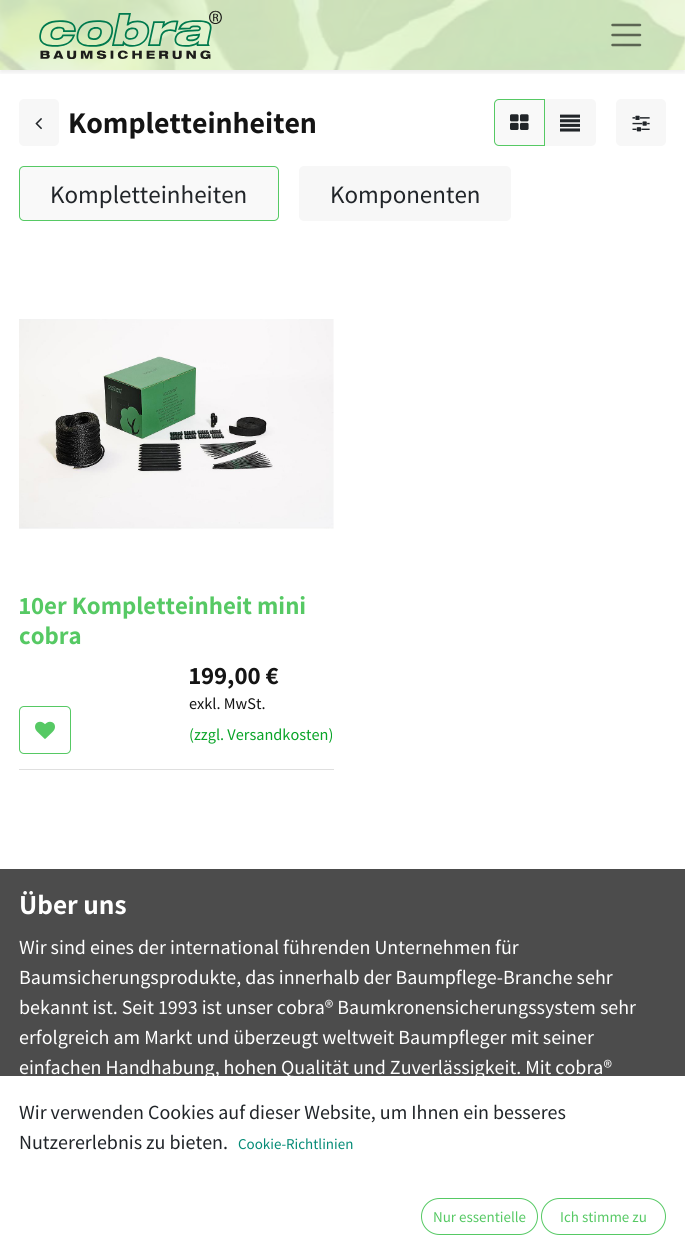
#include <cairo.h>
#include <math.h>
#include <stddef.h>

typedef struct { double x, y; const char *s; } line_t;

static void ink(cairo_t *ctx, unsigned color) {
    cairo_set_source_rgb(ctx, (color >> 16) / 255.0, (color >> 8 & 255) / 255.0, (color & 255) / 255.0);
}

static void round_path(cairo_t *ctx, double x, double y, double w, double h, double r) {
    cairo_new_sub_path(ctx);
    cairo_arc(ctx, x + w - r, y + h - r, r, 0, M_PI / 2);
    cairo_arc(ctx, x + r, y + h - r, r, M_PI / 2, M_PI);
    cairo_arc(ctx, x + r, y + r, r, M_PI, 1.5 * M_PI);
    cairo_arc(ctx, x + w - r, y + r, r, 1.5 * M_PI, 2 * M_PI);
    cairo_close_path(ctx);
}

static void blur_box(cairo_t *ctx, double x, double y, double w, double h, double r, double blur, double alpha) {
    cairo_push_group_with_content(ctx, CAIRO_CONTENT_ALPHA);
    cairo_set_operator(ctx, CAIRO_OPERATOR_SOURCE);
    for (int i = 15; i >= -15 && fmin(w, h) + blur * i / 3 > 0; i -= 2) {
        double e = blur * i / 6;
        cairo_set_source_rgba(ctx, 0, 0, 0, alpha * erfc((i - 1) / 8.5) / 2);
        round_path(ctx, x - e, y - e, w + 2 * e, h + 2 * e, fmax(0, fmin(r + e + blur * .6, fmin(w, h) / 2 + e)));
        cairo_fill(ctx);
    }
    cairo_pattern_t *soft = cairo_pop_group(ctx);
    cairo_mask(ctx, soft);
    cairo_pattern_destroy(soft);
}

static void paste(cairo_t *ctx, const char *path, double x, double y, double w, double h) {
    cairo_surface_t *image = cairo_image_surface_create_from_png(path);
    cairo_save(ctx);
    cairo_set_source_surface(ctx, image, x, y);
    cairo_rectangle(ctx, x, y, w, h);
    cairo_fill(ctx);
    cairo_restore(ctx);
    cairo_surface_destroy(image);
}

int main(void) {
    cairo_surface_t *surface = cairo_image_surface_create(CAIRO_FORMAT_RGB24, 685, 1254);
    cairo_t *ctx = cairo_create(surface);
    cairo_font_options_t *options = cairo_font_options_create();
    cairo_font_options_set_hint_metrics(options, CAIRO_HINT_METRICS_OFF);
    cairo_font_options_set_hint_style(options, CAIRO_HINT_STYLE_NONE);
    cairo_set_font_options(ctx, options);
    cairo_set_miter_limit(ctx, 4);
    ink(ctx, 0xFFFFFF);
    cairo_paint(ctx);
    paste(ctx, "media/1.png", 0, 0, 685, 70);
    cairo_save(ctx);
    cairo_rectangle(ctx, 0, 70, 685, 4);
    cairo_clip(ctx);
    ink(ctx, 0x000000);
    blur_box(ctx, 0, 3, 685, 70, 0, 2.5, 0.07);
    cairo_restore(ctx);
    cairo_set_source_rgba(ctx, 0.918, 0.965, 0.851, 0.85);
    cairo_rectangle(ctx, 0, 0, 685, 70);
    cairo_fill(ctx);
    paste(ctx, "media/2.png", 39, 10, 183, 49);
    cairo_new_path(ctx);
    cairo_move_to(ctx, 612.5, 25);
    cairo_line_to(ctx, 640, 25);
    cairo_move_to(ctx, 612.5, 35);
    cairo_line_to(ctx, 640, 35);
    cairo_move_to(ctx, 612.5, 45);
    cairo_line_to(ctx, 640, 45);
    cairo_set_source_rgba(ctx, 0, 0, 0, 0.55);
    cairo_set_line_width(ctx, 2.5);
    cairo_set_line_cap(ctx, CAIRO_LINE_CAP_ROUND);
    cairo_stroke(ctx);
    ink(ctx, 0xF7F7F7);
    round_path(ctx, 19, 99, 40, 47, 5);
    cairo_fill(ctx);
    paste(ctx, "media/3.png", 35, 118, 7, 12);
    cairo_select_font_face(ctx, "Assistant", CAIRO_FONT_SLANT_NORMAL, CAIRO_FONT_WEIGHT_BOLD);
    cairo_set_font_size(ctx, 30);
    ink(ctx, 0x141414);
    cairo_move_to(ctx, 68, 133);
    cairo_show_text(ctx, "Kompletteinheiten");
    ink(ctx, 0xF7F7F7);
    cairo_new_path(ctx);
    cairo_move_to(ctx, 544, 99);
    cairo_line_to(ctx, 591, 99);
    cairo_curve_to(ctx, 594, 99, 596, 101, 596, 104);
    cairo_line_to(ctx, 596, 141);
    cairo_curve_to(ctx, 596, 144, 594, 146, 591, 146);
    cairo_line_to(ctx, 544, 146);
    cairo_close_path(ctx);
    cairo_fill(ctx);
    ink(ctx, 0xF9F9F9);
    cairo_new_path(ctx);
    cairo_move_to(ctx, 499, 99.5);
    cairo_line_to(ctx, 544.5, 99.5);
    cairo_line_to(ctx, 544.5, 145.5);
    cairo_line_to(ctx, 499, 145.5);
    cairo_curve_to(ctx, 496.5, 145.5, 494.5, 143.5, 494.5, 141);
    cairo_line_to(ctx, 494.5, 104);
    cairo_curve_to(ctx, 494.5, 101.5, 496.5, 99.5, 499, 99.5);
    cairo_close_path(ctx);
    cairo_fill_preserve(ctx);
    ink(ctx, 0x56C964);
    cairo_set_line_width(ctx, 1);
    cairo_set_line_cap(ctx, CAIRO_LINE_CAP_BUTT);
    cairo_stroke(ctx);
    paste(ctx, "media/4.png", 510, 114, 19, 16);
    paste(ctx, "media/5.png", 560, 114, 20, 18);
    ink(ctx, 0xF7F7F7);
    round_path(ctx, 616, 99, 50, 47, 5);
    cairo_fill(ctx);
    paste(ctx, "media/6.png", 632, 115, 18, 17);
    ink(ctx, 0xF9F9F9);
    round_path(ctx, 19.5, 166.5, 259, 54, 4.5);
    cairo_fill_preserve(ctx);
    ink(ctx, 0x56C964);
    cairo_stroke(ctx);
    cairo_select_font_face(ctx, "Source Sans Pro", CAIRO_FONT_SLANT_NORMAL, CAIRO_FONT_WEIGHT_NORMAL);
    cairo_set_font_size(ctx, 25);
    ink(ctx, 0x212529);
    cairo_move_to(ctx, 50, 203);
    cairo_show_text(ctx, "Kompletteinheiten");
    ink(ctx, 0xF7F7F7);
    round_path(ctx, 299, 166, 212, 55, 5);
    cairo_fill(ctx);
    ink(ctx, 0x212529);
    cairo_move_to(ctx, 330, 203);
    cairo_show_text(ctx, "Komponenten");
    ink(ctx, 0xDFDFDF);
    cairo_rectangle(ctx, 19, 769, 315, 1);
    cairo_fill(ctx);
    paste(ctx, "media/7.png", 19, 319, 315, 210);
    cairo_select_font_face(ctx, "Assistant", CAIRO_FONT_SLANT_NORMAL, CAIRO_FONT_WEIGHT_BOLD);
    ink(ctx, 0x56C964);
    cairo_move_to(ctx, 19, 614);
    cairo_show_text(ctx, "10er Kompletteinheit mini");
    cairo_move_to(ctx, 19, 644);
    cairo_show_text(ctx, "cobra");
    round_path(ctx, 19.5, 706.5, 51, 47, 4.5);
    cairo_stroke(ctx);
    paste(ctx, "media/8.png", 35, 721, 20, 18);
    ink(ctx, 0x141414);
    cairo_move_to(ctx, 189, 684);
    cairo_show_text(ctx, "199,00 €");
    cairo_select_font_face(ctx, "Source Sans Pro", CAIRO_FONT_SLANT_NORMAL, CAIRO_FONT_WEIGHT_NORMAL);
    cairo_set_font_size(ctx, 16.25);
    cairo_move_to(ctx, 189, 709);
    cairo_show_text(ctx, "exkl. MwSt.");
    ink(ctx, 0x08A427);
    cairo_move_to(ctx, 189, 740);
    cairo_show_text(ctx, "(zzgl. Versandkosten)");
    ink(ctx, 0x4C4C4C);
    cairo_rectangle(ctx, 0, 869, 685, 207);
    cairo_fill(ctx);
    cairo_select_font_face(ctx, "Assistant", CAIRO_FONT_SLANT_NORMAL, CAIRO_FONT_WEIGHT_BOLD);
    cairo_set_font_size(ctx, 27.5);
    ink(ctx, 0xFFFFFF);
    cairo_move_to(ctx, 19, 914);
    cairo_show_text(ctx, "Über uns");
    cairo_select_font_face(ctx, "Source Sans Pro", CAIRO_FONT_SLANT_NORMAL, CAIRO_FONT_WEIGHT_NORMAL);
    cairo_set_font_size(ctx, 20);
    {
        static const line_t items[] = {
            {19, 954, "Wir sind eines der international führenden Unternehmen für"},
            {19, 984, "Baumsicherungsprodukte, das innerhalb der Baumpflege-Branche sehr"},
            {19, 1014, "bekannt ist. Seit 1993 ist unser cobra® Baumkronensicherungssystem sehr"},
            {19, 1044, "erfolgreich am Markt und überzeugt weltweit Baumpfleger mit seiner"},
            {19, 1074, "einfachen Handhabung, hohen Qualität und Zuverlässigkeit. Mit cobra®"},
        };
        for (size_t i = 0; i < sizeof items / sizeof *items; i++) {
            cairo_move_to(ctx, items[i].x, items[i].y);
            cairo_show_text(ctx, items[i].s);
        }
    }
    ink(ctx, 0x212529);
    cairo_move_to(ctx, 19, 1119);
    cairo_show_text(ctx, "Wir verwenden Cookies auf dieser Website, um Ihnen ein besseres");
    cairo_move_to(ctx, 19, 1149);
    cairo_show_text(ctx, "Nutzererlebnis zu bieten.");
    cairo_set_font_size(ctx, 15);
    ink(ctx, 0x048B76);
    cairo_move_to(ctx, 238, 1149);
    cairo_show_text(ctx, "Cookie-Richtlinien");
    round_path(ctx, 421.5, 1198.5, 116, 36, 18);
    ink(ctx, 0x56C964);
    cairo_stroke(ctx);
    cairo_move_to(ctx, 433, 1222);
    cairo_show_text(ctx, "Nur essentielle");
    round_path(ctx, 541.5, 1198.5, 124, 36, 18);
    cairo_stroke(ctx);
    cairo_move_to(ctx, 560, 1222);
    cairo_show_text(ctx, "Ich stimme zu");
    cairo_surface_write_to_png(surface, "image.png");
    cairo_font_options_destroy(options);
    cairo_destroy(ctx);
    cairo_surface_destroy(surface);
    return 0;
}
